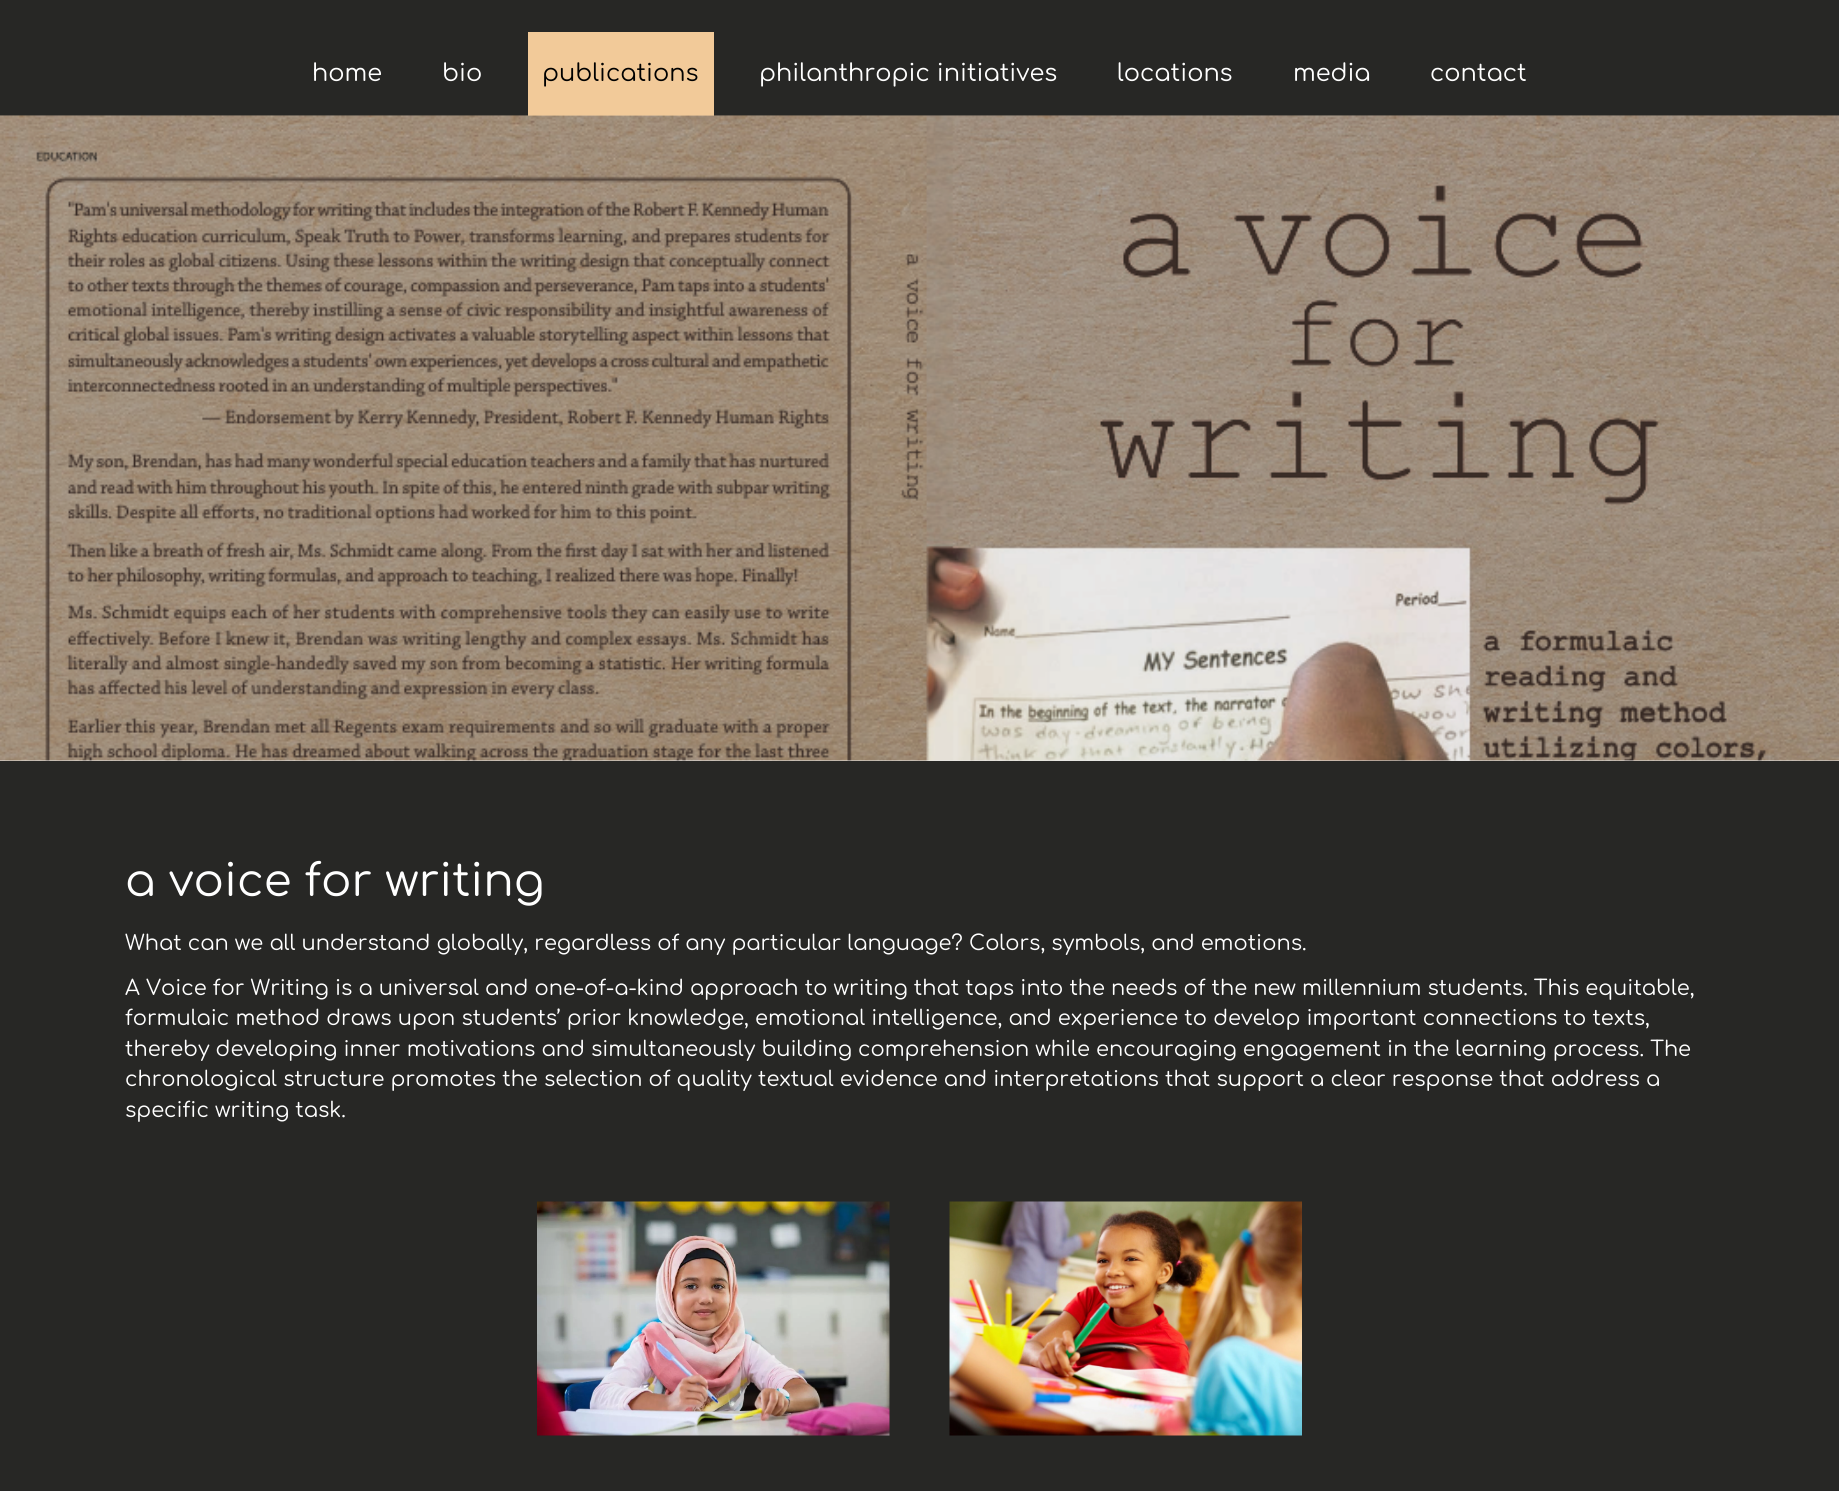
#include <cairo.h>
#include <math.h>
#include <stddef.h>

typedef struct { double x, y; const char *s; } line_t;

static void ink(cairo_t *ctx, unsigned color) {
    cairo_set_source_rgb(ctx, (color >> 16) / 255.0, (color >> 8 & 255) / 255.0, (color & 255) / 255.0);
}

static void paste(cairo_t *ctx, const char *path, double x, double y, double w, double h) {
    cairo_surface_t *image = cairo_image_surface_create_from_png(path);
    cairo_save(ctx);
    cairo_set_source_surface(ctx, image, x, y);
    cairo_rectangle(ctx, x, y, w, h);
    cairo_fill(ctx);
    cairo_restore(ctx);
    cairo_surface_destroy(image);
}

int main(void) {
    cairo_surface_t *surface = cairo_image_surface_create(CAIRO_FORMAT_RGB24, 1839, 1491);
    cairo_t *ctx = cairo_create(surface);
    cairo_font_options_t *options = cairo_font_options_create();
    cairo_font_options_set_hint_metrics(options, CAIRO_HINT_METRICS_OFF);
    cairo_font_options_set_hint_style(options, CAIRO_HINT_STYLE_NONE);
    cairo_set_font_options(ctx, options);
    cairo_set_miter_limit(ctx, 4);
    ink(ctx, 0x272725);
    cairo_paint(ctx);
    cairo_select_font_face(ctx, "Comfortaa", CAIRO_FONT_SLANT_NORMAL, CAIRO_FONT_WEIGHT_NORMAL);
    cairo_set_font_size(ctx, 24);
    ink(ctx, 0xFFFFFF);
    cairo_move_to(ctx, 312, 81);
    cairo_show_text(ctx, "home");
    cairo_move_to(ctx, 442, 81);
    cairo_show_text(ctx, "bio");
    ink(ctx, 0xF2CA99);
    cairo_rectangle(ctx, 528, 32, 186, 84);
    cairo_fill(ctx);
    ink(ctx, 0x000000);
    cairo_move_to(ctx, 542, 81);
    cairo_show_text(ctx, "publications");
    ink(ctx, 0xFFFFFF);
    {
        static const line_t items[] = {
            {759, 81, "philanthropic initiatives"},
            {1117, 81, "locations"},
            {1293, 81, "media"},
            {1430, 81, "contact"},
        };
        for (size_t i = 0; i < sizeof items / sizeof *items; i++) {
            cairo_move_to(ctx, items[i].x, items[i].y);
            cairo_show_text(ctx, items[i].s);
        }
    }
    ink(ctx, 0xE8E8E8);
    cairo_rectangle(ctx, 0, 760, 1839, 1);
    cairo_fill(ctx);
    paste(ctx, "media/1.png", 0, 115, 1839, 646);
    cairo_set_font_size(ctx, 45);
    ink(ctx, 0xFFFFFF);
    cairo_move_to(ctx, 125, 896);
    cairo_show_text(ctx, "a voice for writing");
    cairo_set_font_size(ctx, 21);
    {
        static const line_t items[] = {
            {125, 950, "What can we all understand globally, regardless of any particular language? Colors, symbols, and emotions."},
            {125, 995, "A Voice for Writing is a universal and one-of-a-kind approach to writing that taps into the needs of the new millennium students. This equitable,"},
            {125, 1025, "formulaic method draws upon students’ prior knowledge, emotional intelligence, and experience to develop important connections to texts,"},
            {125, 1056, "thereby developing inner motivations and simultaneously building comprehension while encouraging engagement in the learning process. The"},
            {125, 1086, "chronological structure promotes the selection of quality textual evidence and interpretations that support a clear response that address a"},
            {125, 1117, "specific writing task."},
        };
        for (size_t i = 0; i < sizeof items / sizeof *items; i++) {
            cairo_move_to(ctx, items[i].x, items[i].y);
            cairo_show_text(ctx, items[i].s);
        }
    }
    paste(ctx, "media/2.png", 537, 1201, 353, 235);
    paste(ctx, "media/3.png", 949, 1201, 353, 235);
    cairo_surface_write_to_png(surface, "image.png");
    cairo_font_options_destroy(options);
    cairo_destroy(ctx);
    cairo_surface_destroy(surface);
    return 0;
}
